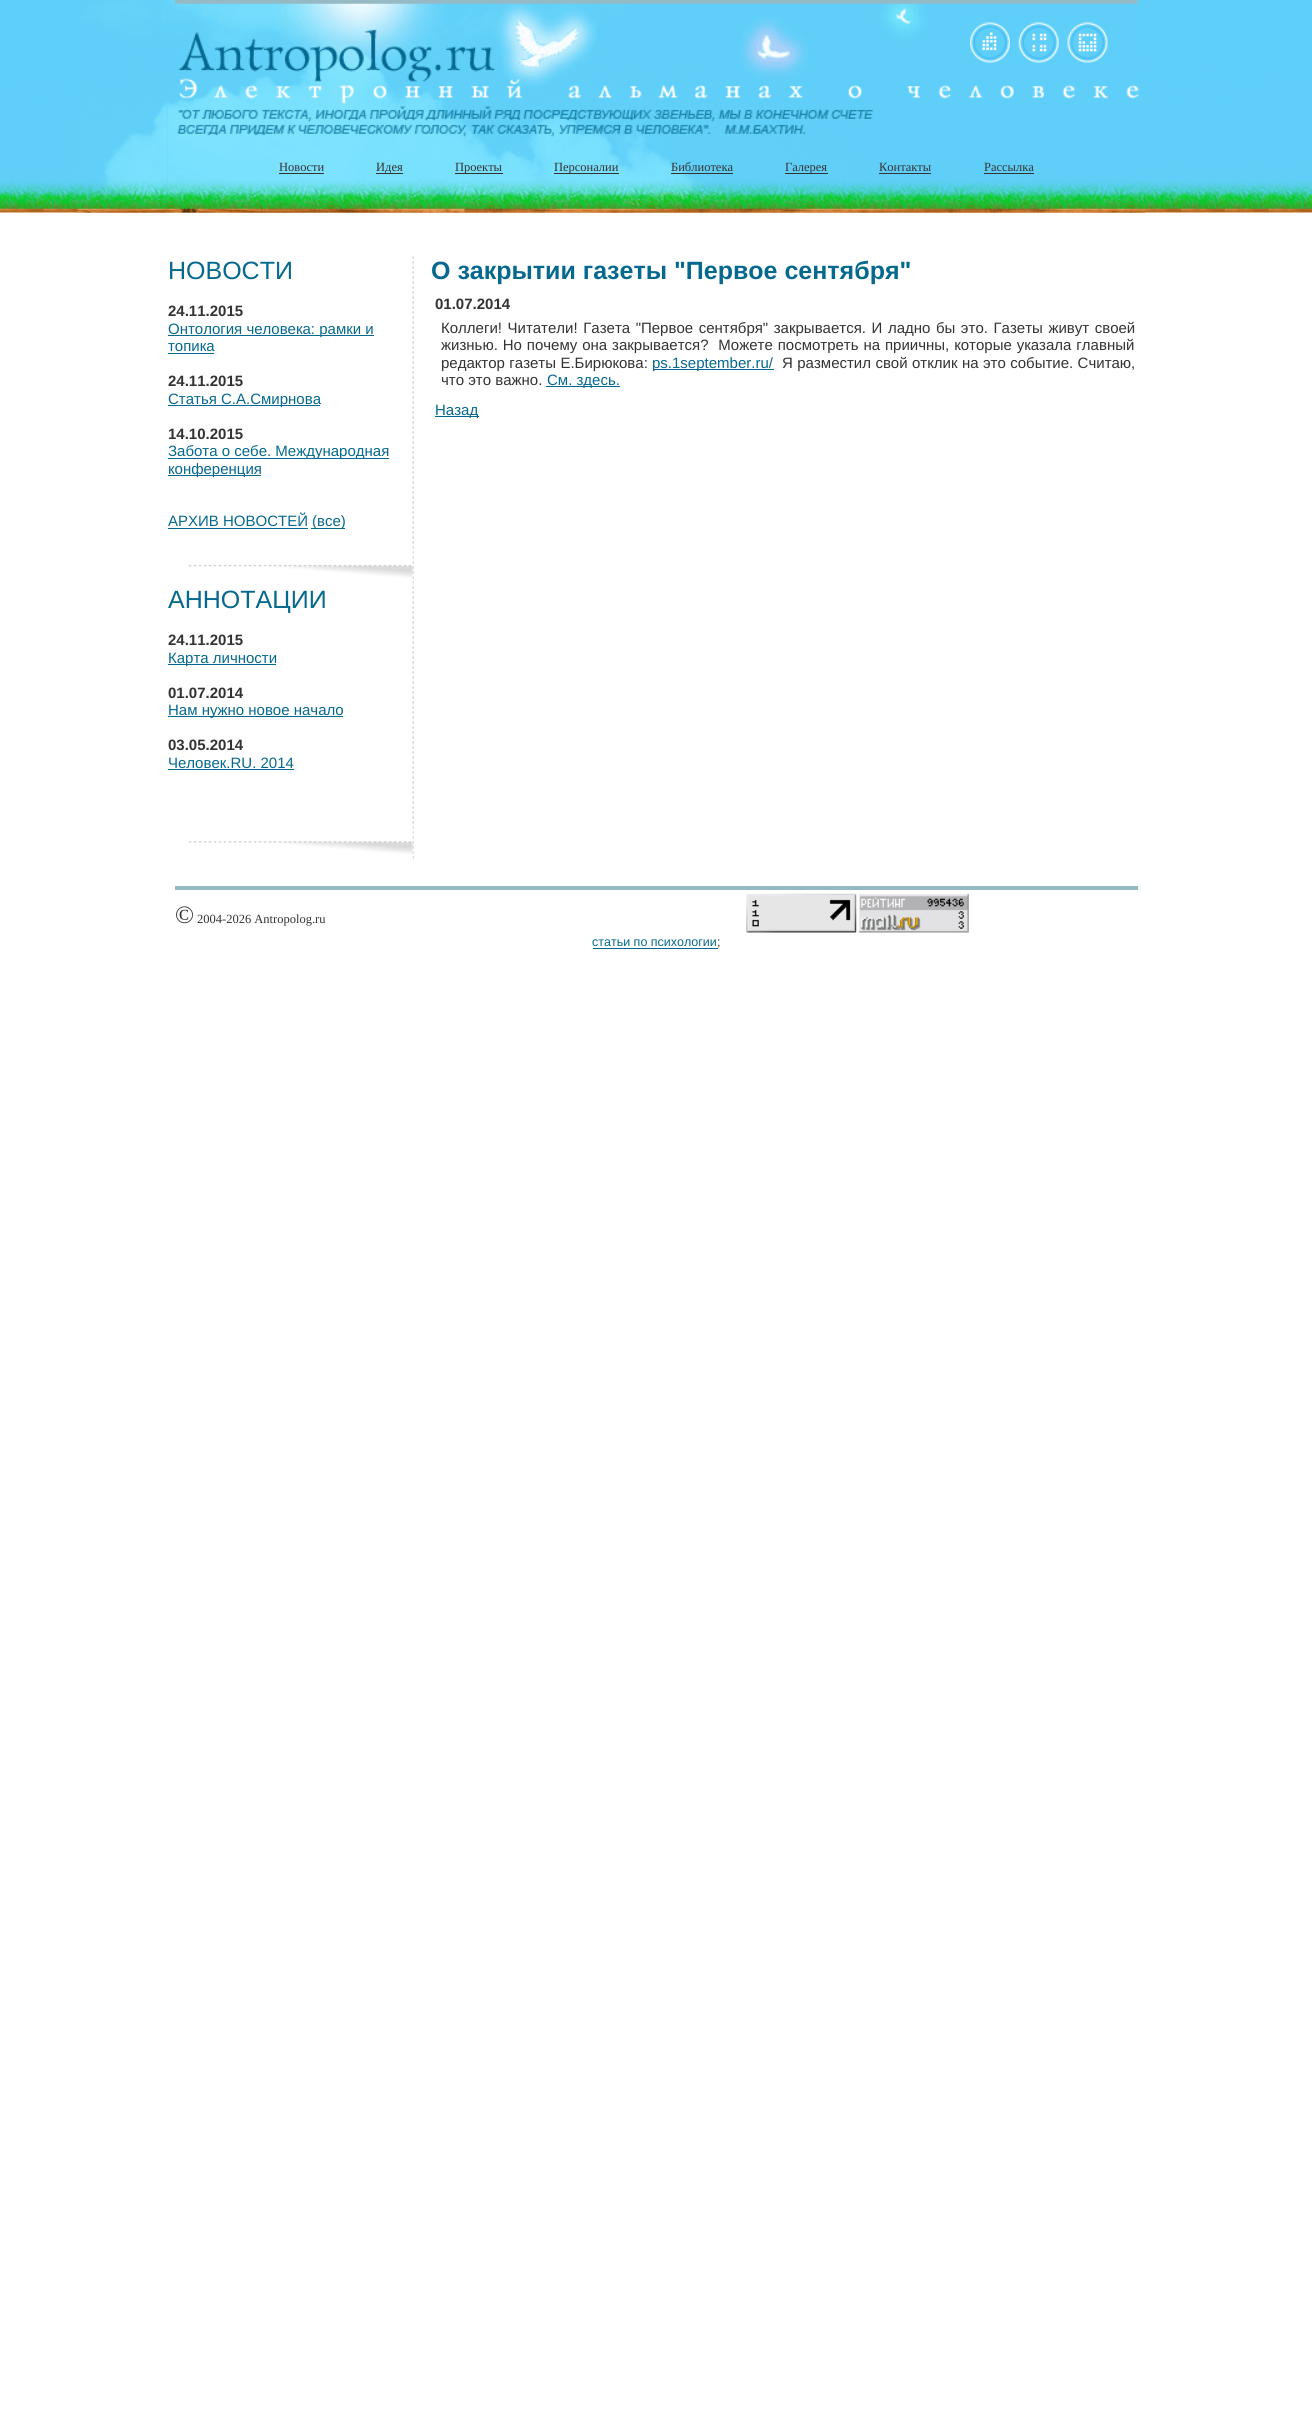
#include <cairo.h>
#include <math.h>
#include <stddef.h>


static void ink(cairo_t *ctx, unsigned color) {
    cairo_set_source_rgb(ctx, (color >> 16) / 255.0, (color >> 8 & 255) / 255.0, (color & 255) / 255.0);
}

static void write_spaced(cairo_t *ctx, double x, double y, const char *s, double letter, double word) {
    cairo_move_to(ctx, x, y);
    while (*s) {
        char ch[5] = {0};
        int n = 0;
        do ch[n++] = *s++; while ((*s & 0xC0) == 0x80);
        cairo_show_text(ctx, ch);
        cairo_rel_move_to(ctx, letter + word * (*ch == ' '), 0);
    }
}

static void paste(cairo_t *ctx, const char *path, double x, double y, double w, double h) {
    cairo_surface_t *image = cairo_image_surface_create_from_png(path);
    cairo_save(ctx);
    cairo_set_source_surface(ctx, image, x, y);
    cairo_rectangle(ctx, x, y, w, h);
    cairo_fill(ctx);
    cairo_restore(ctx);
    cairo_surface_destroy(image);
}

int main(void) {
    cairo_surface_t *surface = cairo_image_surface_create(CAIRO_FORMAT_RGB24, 1312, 2412);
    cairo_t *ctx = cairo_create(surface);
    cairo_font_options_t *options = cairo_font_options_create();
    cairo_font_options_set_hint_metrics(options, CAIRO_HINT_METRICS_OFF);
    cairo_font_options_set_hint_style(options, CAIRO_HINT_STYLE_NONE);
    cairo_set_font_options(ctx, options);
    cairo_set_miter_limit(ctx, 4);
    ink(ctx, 0xFFFFFF);
    cairo_paint(ctx);
    paste(ctx, "media/1.png", 0, 0, 1312, 213);
    paste(ctx, "media/2.png", 77, 0, 91, 213);
    paste(ctx, "media/3.png", 167, 0, 978, 213);
    paste(ctx, "media/4.png", 970, 22, 40, 41);
    paste(ctx, "media/5.png", 1018, 22, 41, 41);
    paste(ctx, "media/6.png", 1067, 22, 41, 41);
    cairo_select_font_face(ctx, "Liberation Serif", CAIRO_FONT_SLANT_NORMAL, CAIRO_FONT_WEIGHT_NORMAL);
    cairo_set_font_size(ctx, 12.5);
    ink(ctx, 0x333333);
    cairo_move_to(ctx, 279, 171);
    cairo_show_text(ctx, "Новости");
    cairo_rectangle(ctx, 279, 173, 45, 1);
    cairo_fill(ctx);
    cairo_rectangle(ctx, 376, 173, 27, 1);
    cairo_fill(ctx);
    cairo_move_to(ctx, 376, 171);
    cairo_show_text(ctx, "Идея");
    cairo_rectangle(ctx, 455, 173, 48, 1);
    cairo_fill(ctx);
    cairo_move_to(ctx, 455, 171);
    cairo_show_text(ctx, "Проекты");
    cairo_rectangle(ctx, 554, 173, 65, 1);
    cairo_fill(ctx);
    cairo_move_to(ctx, 554, 171);
    cairo_show_text(ctx, "Персоналии");
    cairo_move_to(ctx, 671, 171);
    cairo_show_text(ctx, "Библиотека");
    cairo_rectangle(ctx, 671, 173, 62, 1);
    cairo_fill(ctx);
    cairo_rectangle(ctx, 785, 173, 43, 1);
    cairo_fill(ctx);
    cairo_move_to(ctx, 785, 171);
    cairo_show_text(ctx, "Галерея");
    cairo_move_to(ctx, 879, 171);
    cairo_show_text(ctx, "Контакты");
    cairo_rectangle(ctx, 879, 173, 52, 1);
    cairo_fill(ctx);
    cairo_move_to(ctx, 984, 171);
    cairo_show_text(ctx, "Рассылка");
    cairo_rectangle(ctx, 984, 173, 50, 1);
    cairo_fill(ctx);
    cairo_select_font_face(ctx, "Liberation Sans", CAIRO_FONT_SLANT_NORMAL, CAIRO_FONT_WEIGHT_NORMAL);
    cairo_set_font_size(ctx, 25);
    ink(ctx, 0x05698F);
    cairo_move_to(ctx, 168, 279);
    cairo_show_text(ctx, "НОВОСТИ");
    cairo_select_font_face(ctx, "Liberation Sans", CAIRO_FONT_SLANT_NORMAL, CAIRO_FONT_WEIGHT_BOLD);
    cairo_set_font_size(ctx, 15);
    ink(ctx, 0x333333);
    cairo_move_to(ctx, 168, 316);
    cairo_show_text(ctx, "24.11.2015");
    ink(ctx, 0x05698F);
    cairo_rectangle(ctx, 168, 335, 206, 1);
    cairo_fill(ctx);
    cairo_select_font_face(ctx, "Liberation Sans", CAIRO_FONT_SLANT_NORMAL, CAIRO_FONT_WEIGHT_NORMAL);
    cairo_move_to(ctx, 168, 334);
    cairo_show_text(ctx, "Онтология человека: рамки и");
    cairo_move_to(ctx, 168, 351);
    cairo_show_text(ctx, "топика");
    cairo_rectangle(ctx, 168, 353, 46, 1);
    cairo_fill(ctx);
    cairo_select_font_face(ctx, "Liberation Sans", CAIRO_FONT_SLANT_NORMAL, CAIRO_FONT_WEIGHT_BOLD);
    ink(ctx, 0x333333);
    cairo_move_to(ctx, 168, 386);
    cairo_show_text(ctx, "24.11.2015");
    ink(ctx, 0x05698F);
    cairo_rectangle(ctx, 168, 405, 152, 1);
    cairo_fill(ctx);
    cairo_select_font_face(ctx, "Liberation Sans", CAIRO_FONT_SLANT_NORMAL, CAIRO_FONT_WEIGHT_NORMAL);
    cairo_move_to(ctx, 168, 404);
    cairo_show_text(ctx, "Статья С.А.Смирнова");
    cairo_select_font_face(ctx, "Liberation Sans", CAIRO_FONT_SLANT_NORMAL, CAIRO_FONT_WEIGHT_BOLD);
    ink(ctx, 0x333333);
    cairo_move_to(ctx, 168, 439);
    cairo_show_text(ctx, "14.10.2015");
    ink(ctx, 0x05698F);
    cairo_rectangle(ctx, 168, 458, 221, 1);
    cairo_fill(ctx);
    cairo_select_font_face(ctx, "Liberation Sans", CAIRO_FONT_SLANT_NORMAL, CAIRO_FONT_WEIGHT_NORMAL);
    cairo_move_to(ctx, 168, 456);
    cairo_show_text(ctx, "Забота о себе. Международная");
    cairo_rectangle(ctx, 168, 475, 93, 1);
    cairo_fill(ctx);
    cairo_move_to(ctx, 168, 474);
    cairo_show_text(ctx, "конференция");
    cairo_move_to(ctx, 168, 526);
    cairo_show_text(ctx, "АРХИВ НОВОСТЕЙ");
    cairo_rectangle(ctx, 168, 528, 140, 1);
    cairo_fill(ctx);
    cairo_rectangle(ctx, 311, 528, 34, 1);
    cairo_fill(ctx);
    cairo_move_to(ctx, 312, 526);
    cairo_show_text(ctx, "(все)");
    paste(ctx, "media/9.png", 412, 256, 2, 606);
    paste(ctx, "media/7.png", 188, 547, 225, 37);
    cairo_set_font_size(ctx, 25);
    cairo_move_to(ctx, 168, 608);
    cairo_show_text(ctx, "АННОТАЦИИ");
    cairo_select_font_face(ctx, "Liberation Sans", CAIRO_FONT_SLANT_NORMAL, CAIRO_FONT_WEIGHT_BOLD);
    cairo_set_font_size(ctx, 15);
    ink(ctx, 0x333333);
    cairo_move_to(ctx, 168, 645);
    cairo_show_text(ctx, "24.11.2015");
    ink(ctx, 0x05698F);
    cairo_rectangle(ctx, 168, 664, 108, 1);
    cairo_fill(ctx);
    cairo_select_font_face(ctx, "Liberation Sans", CAIRO_FONT_SLANT_NORMAL, CAIRO_FONT_WEIGHT_NORMAL);
    cairo_move_to(ctx, 168, 663);
    cairo_show_text(ctx, "Карта личности");
    cairo_select_font_face(ctx, "Liberation Sans", CAIRO_FONT_SLANT_NORMAL, CAIRO_FONT_WEIGHT_BOLD);
    ink(ctx, 0x333333);
    cairo_move_to(ctx, 168, 698);
    cairo_show_text(ctx, "01.07.2014");
    ink(ctx, 0x05698F);
    cairo_rectangle(ctx, 168, 716, 175, 1);
    cairo_fill(ctx);
    cairo_select_font_face(ctx, "Liberation Sans", CAIRO_FONT_SLANT_NORMAL, CAIRO_FONT_WEIGHT_NORMAL);
    cairo_move_to(ctx, 168, 715);
    cairo_show_text(ctx, "Нам нужно новое начало");
    cairo_select_font_face(ctx, "Liberation Sans", CAIRO_FONT_SLANT_NORMAL, CAIRO_FONT_WEIGHT_BOLD);
    ink(ctx, 0x333333);
    cairo_move_to(ctx, 168, 750);
    cairo_show_text(ctx, "03.05.2014");
    cairo_select_font_face(ctx, "Liberation Sans", CAIRO_FONT_SLANT_NORMAL, CAIRO_FONT_WEIGHT_NORMAL);
    ink(ctx, 0x05698F);
    cairo_move_to(ctx, 168, 768);
    cairo_show_text(ctx, "Человек.RU. 2014");
    cairo_rectangle(ctx, 168, 769, 126, 1);
    cairo_fill(ctx);
    paste(ctx, "media/8.png", 188, 826, 225, 33);
    cairo_select_font_face(ctx, "Liberation Sans", CAIRO_FONT_SLANT_NORMAL, CAIRO_FONT_WEIGHT_BOLD);
    cairo_set_font_size(ctx, 25);
    cairo_move_to(ctx, 431, 279);
    cairo_show_text(ctx, "О закрытии газеты \"Первое сентября\"");
    cairo_set_font_size(ctx, 15);
    ink(ctx, 0x333333);
    cairo_move_to(ctx, 435, 309);
    cairo_show_text(ctx, "01.07.2014");
    cairo_select_font_face(ctx, "Liberation Sans", CAIRO_FONT_SLANT_NORMAL, CAIRO_FONT_WEIGHT_NORMAL);
    write_spaced(ctx, 441, 333, "Коллеги! Читатели! Газета \"Первое сентября\" закрывается. И ладно бы это. Газеты живут своей", 0, 1.4);
    write_spaced(ctx, 441, 350, "жизнью. Но почему она закрывается?  Можете посмотреть на приичны, которые указала главный", 0, 0.75);
    write_spaced(ctx, 441, 368, "редактор газеты Е.Бирюкова:", 0, 0.25);
    ink(ctx, 0x05698F);
    cairo_rectangle(ctx, 653, 369, 121, 1);
    cairo_fill(ctx);
    cairo_move_to(ctx, 652, 368);
    cairo_show_text(ctx, "ps.1september.ru/");
    ink(ctx, 0x333333);
    write_spaced(ctx, 782, 368, "Я разместил свой отклик на это событие. Считаю,", 0, 0.25);
    cairo_move_to(ctx, 441, 385);
    cairo_show_text(ctx, "что это важно.");
    ink(ctx, 0x05698F);
    cairo_rectangle(ctx, 546, 386, 74, 1);
    cairo_fill(ctx);
    cairo_move_to(ctx, 547, 385);
    cairo_show_text(ctx, "См. здесь.");
    cairo_rectangle(ctx, 435, 416, 44, 1);
    cairo_fill(ctx);
    cairo_move_to(ctx, 435, 415);
    cairo_show_text(ctx, "Назад");
    ink(ctx, 0x95B8C4);
    cairo_rectangle(ctx, 175, 886, 963, 4);
    cairo_fill(ctx);
    cairo_select_font_face(ctx, "Liberation Serif", CAIRO_FONT_SLANT_NORMAL, CAIRO_FONT_WEIGHT_NORMAL);
    cairo_set_font_size(ctx, 25);
    ink(ctx, 0x333333);
    cairo_move_to(ctx, 175, 923);
    cairo_show_text(ctx, "©");
    cairo_set_font_size(ctx, 12.5);
    cairo_move_to(ctx, 197, 923);
    cairo_show_text(ctx, "2004-2026 Antropolog.ru");
    paste(ctx, "media/10.png", 746, 893, 111, 40);
    paste(ctx, "media/11.png", 858, 893, 111, 40);
    cairo_select_font_face(ctx, "Liberation Sans", CAIRO_FONT_SLANT_NORMAL, CAIRO_FONT_WEIGHT_NORMAL);
    ink(ctx, 0x05698F);
    cairo_move_to(ctx, 592, 946);
    cairo_show_text(ctx, "статьи по психологии");
    cairo_rectangle(ctx, 593, 948, 125, 1);
    cairo_fill(ctx);
    ink(ctx, 0x333333);
    cairo_move_to(ctx, 717, 946);
    cairo_show_text(ctx, ";");
    cairo_surface_write_to_png(surface, "image.png");
    cairo_font_options_destroy(options);
    cairo_destroy(ctx);
    cairo_surface_destroy(surface);
    return 0;
}
